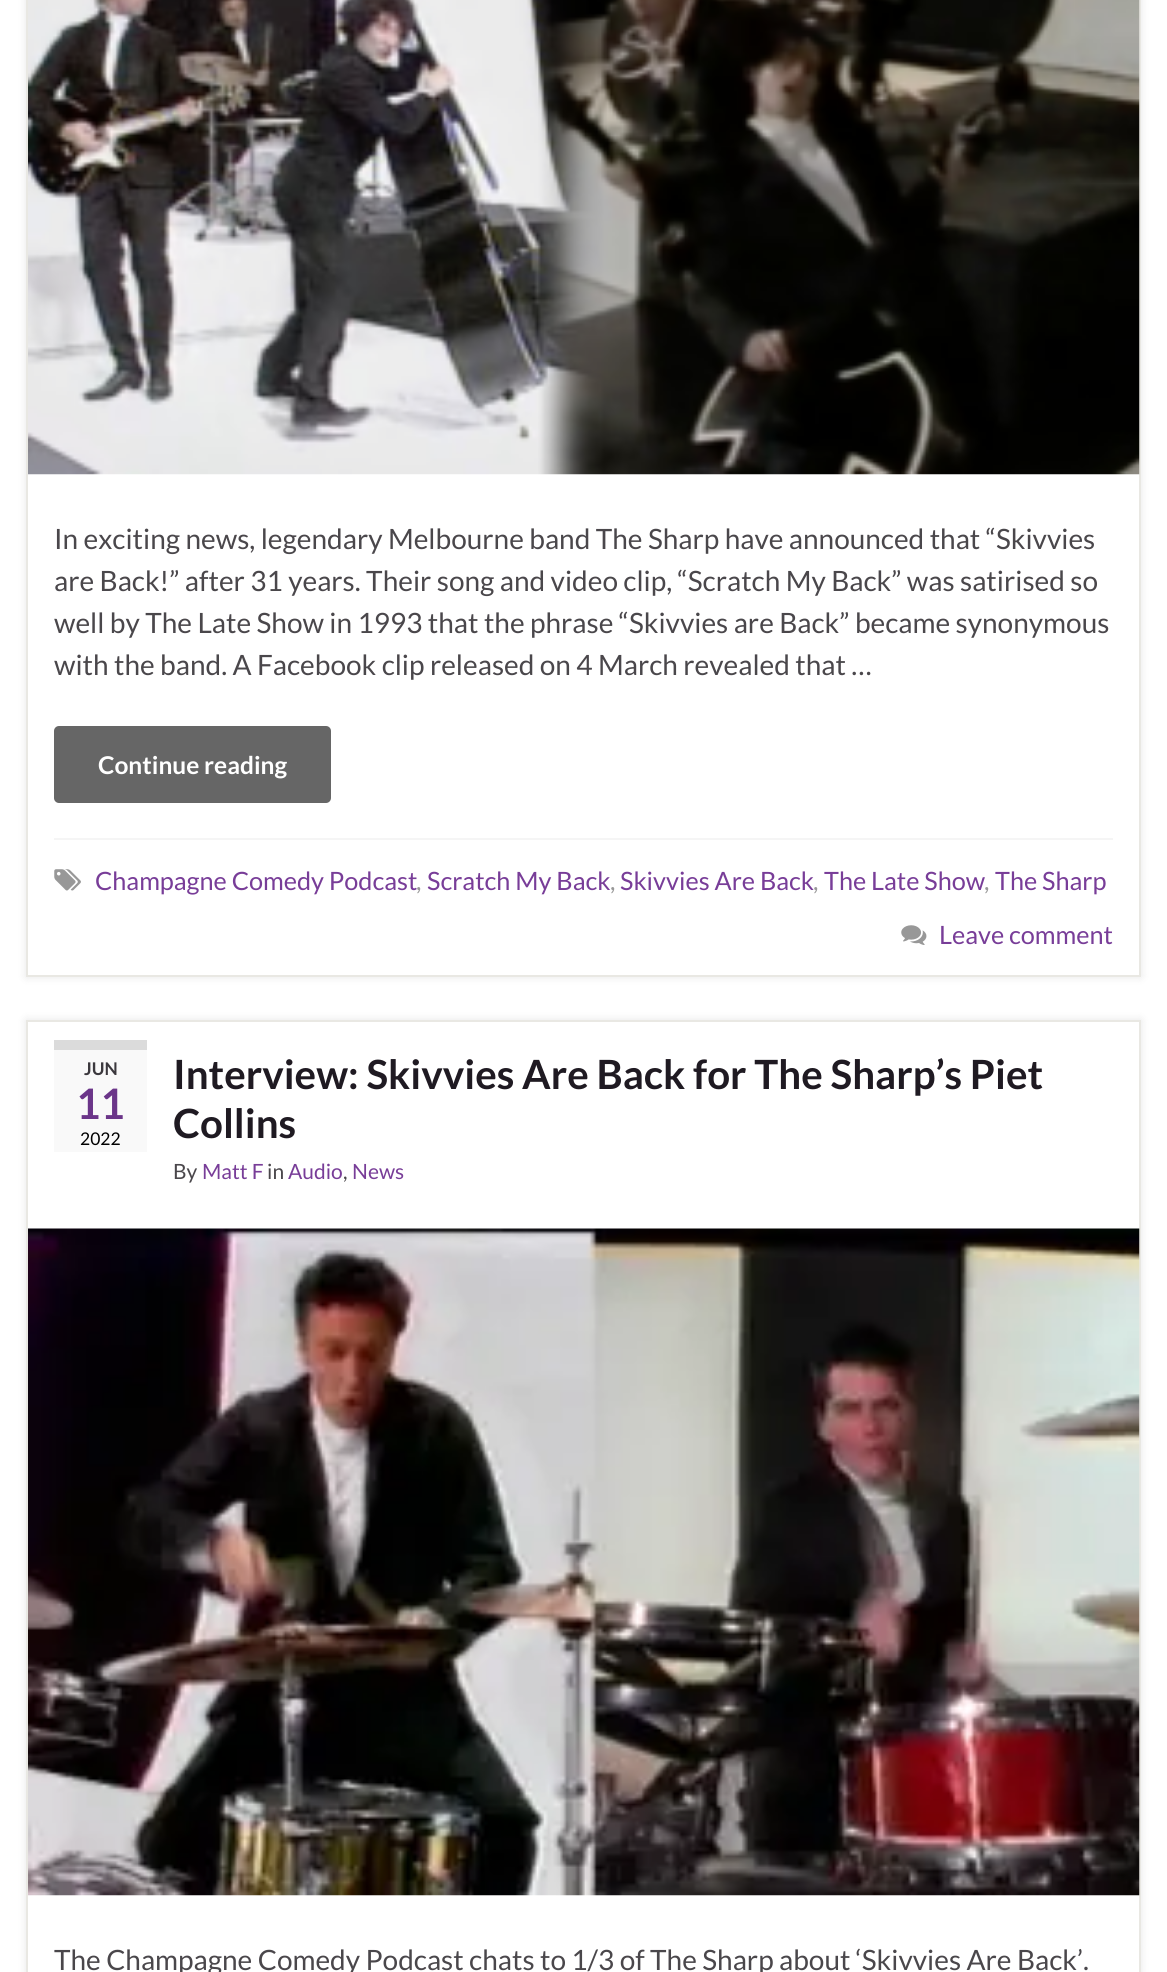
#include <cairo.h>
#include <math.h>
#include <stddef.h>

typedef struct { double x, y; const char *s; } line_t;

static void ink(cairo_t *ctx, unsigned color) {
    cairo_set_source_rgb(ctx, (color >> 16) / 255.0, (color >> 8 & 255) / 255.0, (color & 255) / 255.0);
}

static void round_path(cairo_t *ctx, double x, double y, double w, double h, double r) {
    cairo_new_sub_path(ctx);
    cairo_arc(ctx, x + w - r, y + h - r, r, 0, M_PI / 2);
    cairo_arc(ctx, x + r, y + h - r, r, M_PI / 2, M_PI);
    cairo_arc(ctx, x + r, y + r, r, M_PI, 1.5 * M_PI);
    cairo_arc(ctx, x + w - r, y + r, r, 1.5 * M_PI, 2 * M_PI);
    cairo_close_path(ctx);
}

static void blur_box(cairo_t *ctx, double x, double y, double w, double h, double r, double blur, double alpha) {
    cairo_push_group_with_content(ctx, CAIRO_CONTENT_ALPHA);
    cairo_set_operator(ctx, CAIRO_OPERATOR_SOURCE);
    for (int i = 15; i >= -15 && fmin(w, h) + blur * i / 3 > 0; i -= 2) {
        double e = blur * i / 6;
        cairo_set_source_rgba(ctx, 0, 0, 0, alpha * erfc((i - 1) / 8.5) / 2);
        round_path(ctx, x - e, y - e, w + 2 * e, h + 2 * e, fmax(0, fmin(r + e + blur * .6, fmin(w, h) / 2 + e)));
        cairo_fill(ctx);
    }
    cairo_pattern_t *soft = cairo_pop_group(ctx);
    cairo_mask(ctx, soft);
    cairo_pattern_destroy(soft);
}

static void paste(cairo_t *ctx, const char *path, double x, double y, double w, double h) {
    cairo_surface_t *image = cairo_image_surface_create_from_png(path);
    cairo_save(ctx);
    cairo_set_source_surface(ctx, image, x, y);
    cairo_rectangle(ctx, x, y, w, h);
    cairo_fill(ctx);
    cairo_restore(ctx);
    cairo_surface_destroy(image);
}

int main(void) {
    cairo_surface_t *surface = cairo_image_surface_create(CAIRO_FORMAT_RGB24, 1167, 1972);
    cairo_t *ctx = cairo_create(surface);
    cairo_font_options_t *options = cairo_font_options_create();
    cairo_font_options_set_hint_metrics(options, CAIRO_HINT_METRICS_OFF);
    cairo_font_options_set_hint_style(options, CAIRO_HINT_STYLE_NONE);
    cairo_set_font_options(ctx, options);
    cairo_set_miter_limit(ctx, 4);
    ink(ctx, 0xFFFFFF);
    cairo_paint(ctx);
    ink(ctx, 0x000000);
    blur_box(ctx, 26, -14, 1115, 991, 0, 4.5, 0.1);
    ink(ctx, 0xFFFFFF);
    cairo_rectangle(ctx, 28, 474, 1111, 501);
    cairo_fill(ctx);
    cairo_rectangle(ctx, 27, -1, 1113, 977);
    ink(ctx, 0xE9E8E3);
    cairo_stroke(ctx);
    paste(ctx, "media/1.png", 28, 0, 1112, 475);
    cairo_select_font_face(ctx, "Lato", CAIRO_FONT_SLANT_NORMAL, CAIRO_FONT_WEIGHT_NORMAL);
    cairo_set_font_size(ctx, 28);
    ink(ctx, 0x4A474B);
    {
        static const line_t items[] = {
            {54, 549, "In exciting news, legendary Melbourne band The Sharp have announced that “Skivvies"},
            {54, 591, "are Back!” after 31 years. Their song and video clip, “Scratch My Back” was satirised so"},
            {54, 633, "well by The Late Show in 1993 that the phrase “Skivvies are Back” became synonymous"},
            {54, 675, "with the band. A Facebook clip released on 4 March revealed that …"},
        };
        for (size_t i = 0; i < sizeof items / sizeof *items; i++) {
            cairo_move_to(ctx, items[i].x, items[i].y);
            cairo_show_text(ctx, items[i].s);
        }
    }
    ink(ctx, 0x666666);
    round_path(ctx, 54, 726, 277, 77, 5);
    cairo_fill(ctx);
    cairo_select_font_face(ctx, "Lato", CAIRO_FONT_SLANT_NORMAL, CAIRO_FONT_WEIGHT_BOLD);
    cairo_set_font_size(ctx, 24.5);
    ink(ctx, 0xFFFFFF);
    cairo_move_to(ctx, 98, 774);
    cairo_show_text(ctx, "Continue reading");
    ink(ctx, 0xF5F5F5);
    cairo_rectangle(ctx, 54, 838, 1059, 2);
    cairo_fill(ctx);
    paste(ctx, "media/2.png", 54, 869, 27, 22);
    cairo_select_font_face(ctx, "Lato", CAIRO_FONT_SLANT_NORMAL, CAIRO_FONT_WEIGHT_NORMAL);
    cairo_set_font_size(ctx, 25.25);
    ink(ctx, 0x783D98);
    cairo_move_to(ctx, 95, 890);
    cairo_show_text(ctx, "Champagne Comedy Podcast");
    ink(ctx, 0x989898);
    cairo_move_to(ctx, 416, 890);
    cairo_show_text(ctx, ",");
    ink(ctx, 0x783D98);
    cairo_move_to(ctx, 427, 890);
    cairo_show_text(ctx, "Scratch My Back");
    ink(ctx, 0x989898);
    cairo_move_to(ctx, 610, 890);
    cairo_show_text(ctx, ",");
    ink(ctx, 0x783D98);
    cairo_move_to(ctx, 620, 890);
    cairo_show_text(ctx, "Skivvies Are Back");
    ink(ctx, 0x989898);
    cairo_move_to(ctx, 813, 890);
    cairo_show_text(ctx, ",");
    ink(ctx, 0x783D98);
    cairo_move_to(ctx, 824, 890);
    cairo_show_text(ctx, "The Late Show");
    ink(ctx, 0x989898);
    cairo_move_to(ctx, 984, 890);
    cairo_show_text(ctx, ",");
    ink(ctx, 0x783D98);
    cairo_move_to(ctx, 995, 890);
    cairo_show_text(ctx, "The Sharp");
    paste(ctx, "media/3.png", 901, 925, 26, 20);
    cairo_move_to(ctx, 939, 944);
    cairo_show_text(ctx, "Leave comment");
    ink(ctx, 0x000000);
    blur_box(ctx, 26, 1020, 1115, 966, 0, 4.5, 0.1);
    ink(ctx, 0xFFFFFF);
    cairo_rectangle(ctx, 27, 1021, 1113, 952);
    cairo_fill_preserve(ctx);
    ink(ctx, 0xE9E8E3);
    cairo_stroke(ctx);
    ink(ctx, 0xF9F9F9);
    cairo_rectangle(ctx, 54, 1050, 93, 102);
    cairo_fill(ctx);
    ink(ctx, 0xDBDBDB);
    cairo_rectangle(ctx, 54, 1040, 93, 10);
    cairo_fill(ctx);
    cairo_select_font_face(ctx, "Lato", CAIRO_FONT_SLANT_NORMAL, CAIRO_FONT_WEIGHT_BOLD);
    cairo_set_font_size(ctx, 17.5);
    ink(ctx, 0x3B383D);
    cairo_move_to(ctx, 84, 1075);
    cairo_show_text(ctx, "JUN");
    cairo_set_font_size(ctx, 42);
    ink(ctx, 0x6B3589);
    cairo_move_to(ctx, 76, 1119);
    cairo_show_text(ctx, "11");
    cairo_select_font_face(ctx, "Lato", CAIRO_FONT_SLANT_NORMAL, CAIRO_FONT_WEIGHT_NORMAL);
    cairo_set_font_size(ctx, 17.5);
    ink(ctx, 0x000000);
    cairo_move_to(ctx, 80, 1145);
    cairo_show_text(ctx, "2022");
    cairo_select_font_face(ctx, "Lato", CAIRO_FONT_SLANT_NORMAL, CAIRO_FONT_WEIGHT_BOLD);
    cairo_set_font_size(ctx, 40.3);
    ink(ctx, 0x1F1A22);
    cairo_move_to(ctx, 173, 1089);
    cairo_show_text(ctx, "Interview: Skivvies Are Back for The Sharp’s Piet");
    cairo_move_to(ctx, 173, 1138);
    cairo_show_text(ctx, "Collins");
    cairo_select_font_face(ctx, "Lato", CAIRO_FONT_SLANT_NORMAL, CAIRO_FONT_WEIGHT_NORMAL);
    cairo_set_font_size(ctx, 21);
    ink(ctx, 0x4A474B);
    cairo_move_to(ctx, 173, 1179);
    cairo_show_text(ctx, "By");
    ink(ctx, 0x783D98);
    cairo_move_to(ctx, 202, 1179);
    cairo_show_text(ctx, "Matt F");
    ink(ctx, 0x4A474B);
    cairo_move_to(ctx, 267, 1179);
    cairo_show_text(ctx, "in");
    ink(ctx, 0x783D98);
    cairo_move_to(ctx, 288, 1179);
    cairo_show_text(ctx, "Audio");
    ink(ctx, 0x4A474B);
    cairo_move_to(ctx, 343, 1179);
    cairo_show_text(ctx, ",");
    ink(ctx, 0x783D98);
    cairo_move_to(ctx, 352, 1179);
    cairo_show_text(ctx, "News");
    paste(ctx, "media/4.png", 28, 1228, 1112, 668);
    cairo_set_font_size(ctx, 28);
    ink(ctx, 0x4A474B);
    cairo_move_to(ctx, 54, 1970);
    cairo_show_text(ctx, "The Champagne Comedy Podcast chats to 1/3 of The Sharp about ‘Skivvies Are Back’.");
    cairo_surface_write_to_png(surface, "image.png");
    cairo_font_options_destroy(options);
    cairo_destroy(ctx);
    cairo_surface_destroy(surface);
    return 0;
}
